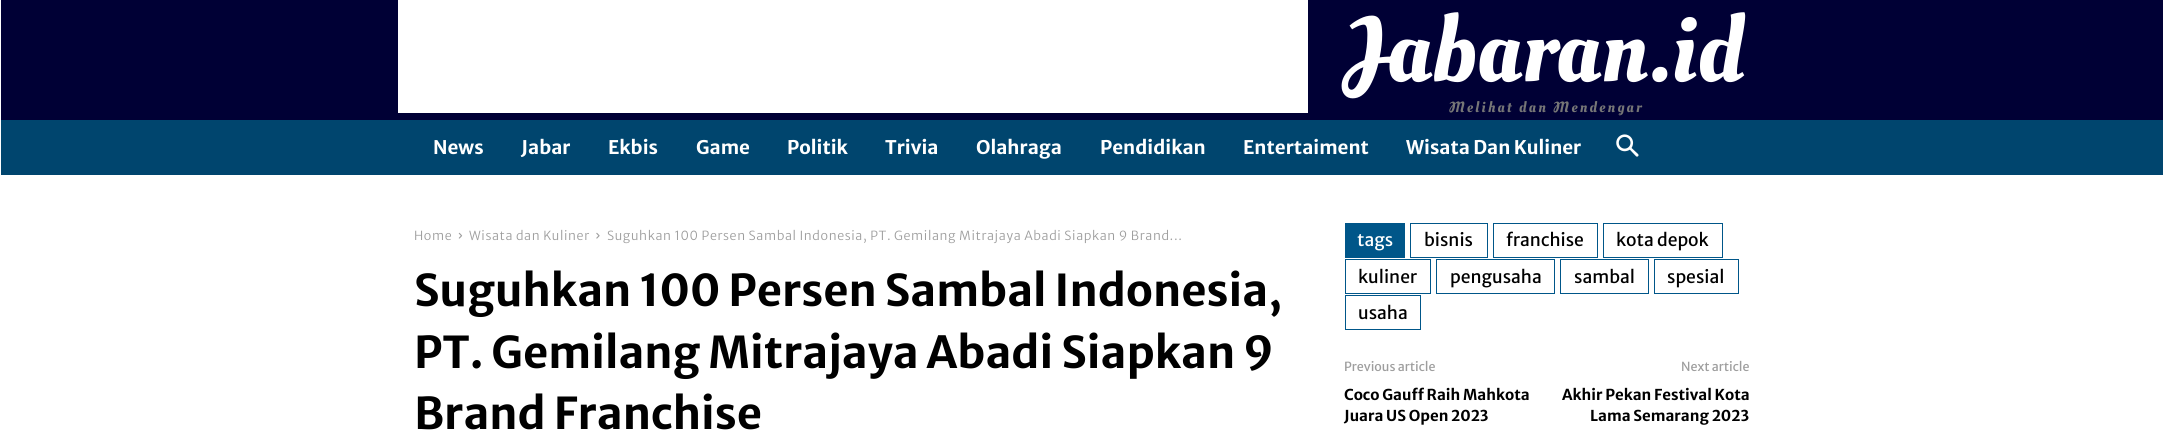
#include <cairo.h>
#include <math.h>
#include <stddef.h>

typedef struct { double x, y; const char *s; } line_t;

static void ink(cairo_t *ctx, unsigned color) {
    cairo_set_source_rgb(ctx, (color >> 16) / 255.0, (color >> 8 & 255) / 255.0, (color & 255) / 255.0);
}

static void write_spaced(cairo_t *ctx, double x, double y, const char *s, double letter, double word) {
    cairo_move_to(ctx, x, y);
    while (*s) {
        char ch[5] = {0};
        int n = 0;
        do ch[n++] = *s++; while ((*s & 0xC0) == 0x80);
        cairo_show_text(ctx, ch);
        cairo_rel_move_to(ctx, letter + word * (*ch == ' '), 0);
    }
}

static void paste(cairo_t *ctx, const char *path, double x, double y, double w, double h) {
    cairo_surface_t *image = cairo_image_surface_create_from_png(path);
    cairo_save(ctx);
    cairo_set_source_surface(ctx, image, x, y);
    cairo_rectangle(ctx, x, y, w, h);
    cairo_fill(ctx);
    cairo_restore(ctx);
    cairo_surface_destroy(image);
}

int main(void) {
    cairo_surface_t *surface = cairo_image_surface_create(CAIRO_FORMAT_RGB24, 2163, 436);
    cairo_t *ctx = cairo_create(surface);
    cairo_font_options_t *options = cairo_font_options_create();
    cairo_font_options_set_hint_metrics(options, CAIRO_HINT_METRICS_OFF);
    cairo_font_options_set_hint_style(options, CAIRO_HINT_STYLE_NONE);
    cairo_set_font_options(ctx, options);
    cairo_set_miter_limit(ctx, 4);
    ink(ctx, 0xFFFFFF);
    cairo_paint(ctx);
    ink(ctx, 0x000035);
    cairo_rectangle(ctx, 1, 0, 2162, 120);
    cairo_fill(ctx);
    ink(ctx, 0xFFFFFF);
    cairo_rectangle(ctx, 398, 0, 910, 113);
    cairo_fill(ctx);
    cairo_select_font_face(ctx, "Oleo Script Swash Caps", CAIRO_FONT_SLANT_NORMAL, CAIRO_FONT_WEIGHT_NORMAL);
    cairo_set_font_size(ctx, 93.75);
    cairo_move_to(ctx, 1349, 81);
    cairo_show_text(ctx, "Jabaran.id");
    cairo_set_font_size(ctx, 15);
    ink(ctx, 0x767676);
    write_spaced(ctx, 1449, 112, "Melihat dan Mendengar", 2.25, 0);
    ink(ctx, 0x00456E);
    cairo_rectangle(ctx, 1, 120, 2162, 55);
    cairo_fill(ctx);
    cairo_select_font_face(ctx, "Merriweather Sans", CAIRO_FONT_SLANT_NORMAL, CAIRO_FONT_WEIGHT_BOLD);
    cairo_set_font_size(ctx, 18.75);
    ink(ctx, 0xFFFFFF);
    {
        static const line_t items[] = {
            {433, 154, "News"},
            {521, 154, "Jabar"},
            {608, 154, "Ekbis"},
            {696, 154, "Game"},
            {787, 154, "Politik"},
            {885, 154, "Trivia"},
            {976, 154, "Olahraga"},
            {1100, 154, "Pendidikan"},
            {1243, 154, "Entertaiment"},
            {1406, 154, "Wisata Dan Kuliner"},
        };
        for (size_t i = 0; i < sizeof items / sizeof *items; i++) {
            cairo_move_to(ctx, items[i].x, items[i].y);
            cairo_show_text(ctx, items[i].s);
        }
    }
    paste(ctx, "media/1.png", 1616, 134, 23, 23);
    cairo_select_font_face(ctx, "Merriweather Sans Light", CAIRO_FONT_SLANT_NORMAL, CAIRO_FONT_WEIGHT_NORMAL);
    cairo_set_font_size(ctx, 12.5);
    ink(ctx, 0x9E9E9E);
    write_spaced(ctx, 414, 240, "Home", 0.62, 0);
    paste(ctx, "media/2.png", 458, 232, 5, 7);
    write_spaced(ctx, 469, 240, "Wisata dan Kuliner", 0.62, 0);
    paste(ctx, "media/3.png", 596, 232, 4, 7);
    write_spaced(ctx, 607, 240, "Suguhkan 100 Persen Sambal Indonesia, PT. Gemilang Mitrajaya Abadi Siapkan 9 Brand...", 0.62, 0);
    cairo_select_font_face(ctx, "Merriweather Sans", CAIRO_FONT_SLANT_NORMAL, CAIRO_FONT_WEIGHT_BOLD);
    cairo_set_font_size(ctx, 43.75);
    ink(ctx, 0x000000);
    {
        static const line_t items[] = {
            {414, 306, "Suguhkan 100 Persen Sambal Indonesia,"},
            {414, 368, "PT. Gemilang Mitrajaya Abadi Siapkan 9"},
            {414, 429, "Brand Franchise"},
        };
        for (size_t i = 0; i < sizeof items / sizeof *items; i++) {
            cairo_move_to(ctx, items[i].x, items[i].y);
            cairo_show_text(ctx, items[i].s);
        }
    }
    ink(ctx, 0x005689);
    cairo_rectangle(ctx, 1345, 223, 60, 35);
    cairo_fill(ctx);
    cairo_select_font_face(ctx, "Merriweather Sans", CAIRO_FONT_SLANT_NORMAL, CAIRO_FONT_WEIGHT_NORMAL);
    cairo_set_font_size(ctx, 17.5);
    ink(ctx, 0xFFFFFF);
    cairo_move_to(ctx, 1357, 246);
    cairo_show_text(ctx, "tags");
    cairo_rectangle(ctx, 1410.5, 223.5, 77, 34);
    ink(ctx, 0x005689);
    cairo_set_line_width(ctx, 1);
    cairo_stroke(ctx);
    ink(ctx, 0x000000);
    cairo_move_to(ctx, 1424, 246);
    cairo_show_text(ctx, "bisnis");
    cairo_rectangle(ctx, 1493.5, 223.5, 104, 34);
    ink(ctx, 0x005689);
    cairo_stroke(ctx);
    ink(ctx, 0x000000);
    cairo_move_to(ctx, 1506, 246);
    cairo_show_text(ctx, "franchise");
    cairo_rectangle(ctx, 1603.5, 223.5, 119, 34);
    ink(ctx, 0x005689);
    cairo_stroke(ctx);
    ink(ctx, 0x000000);
    cairo_move_to(ctx, 1616, 246);
    cairo_show_text(ctx, "kota depok");
    cairo_rectangle(ctx, 1345.5, 259.5, 85, 34);
    ink(ctx, 0x005689);
    cairo_stroke(ctx);
    ink(ctx, 0x000000);
    cairo_move_to(ctx, 1358, 283);
    cairo_show_text(ctx, "kuliner");
    cairo_rectangle(ctx, 1436.5, 259.5, 118, 34);
    ink(ctx, 0x005689);
    cairo_stroke(ctx);
    ink(ctx, 0x000000);
    cairo_move_to(ctx, 1450, 283);
    cairo_show_text(ctx, "pengusaha");
    cairo_rectangle(ctx, 1560.5, 259.5, 88, 34);
    ink(ctx, 0x005689);
    cairo_stroke(ctx);
    ink(ctx, 0x000000);
    cairo_move_to(ctx, 1574, 283);
    cairo_show_text(ctx, "sambal");
    cairo_rectangle(ctx, 1654.5, 259.5, 84, 34);
    ink(ctx, 0x005689);
    cairo_stroke(ctx);
    ink(ctx, 0x000000);
    cairo_move_to(ctx, 1667, 283);
    cairo_show_text(ctx, "spesial");
    cairo_rectangle(ctx, 1345.5, 295.5, 75, 34);
    ink(ctx, 0x005689);
    cairo_stroke(ctx);
    ink(ctx, 0x000000);
    cairo_move_to(ctx, 1358, 319);
    cairo_show_text(ctx, "usaha");
    cairo_set_font_size(ctx, 12.5);
    ink(ctx, 0x9E9E9E);
    cairo_move_to(ctx, 1344, 371);
    cairo_show_text(ctx, "Previous article");
    cairo_select_font_face(ctx, "Merriweather Sans", CAIRO_FONT_SLANT_NORMAL, CAIRO_FONT_WEIGHT_BOLD);
    cairo_set_font_size(ctx, 15);
    ink(ctx, 0x000000);
    cairo_move_to(ctx, 1344, 400);
    cairo_show_text(ctx, "Coco Gauff Raih Mahkota");
    cairo_move_to(ctx, 1344, 421);
    cairo_show_text(ctx, "Juara US Open 2023");
    cairo_select_font_face(ctx, "Merriweather Sans", CAIRO_FONT_SLANT_NORMAL, CAIRO_FONT_WEIGHT_NORMAL);
    cairo_set_font_size(ctx, 12.5);
    ink(ctx, 0x9E9E9E);
    cairo_move_to(ctx, 1681, 371);
    cairo_show_text(ctx, "Next article");
    cairo_select_font_face(ctx, "Merriweather Sans", CAIRO_FONT_SLANT_NORMAL, CAIRO_FONT_WEIGHT_BOLD);
    cairo_set_font_size(ctx, 15);
    ink(ctx, 0x000000);
    cairo_move_to(ctx, 1562, 400);
    cairo_show_text(ctx, "Akhir Pekan Festival Kota");
    cairo_move_to(ctx, 1590, 421);
    cairo_show_text(ctx, "Lama Semarang 2023");
    cairo_surface_write_to_png(surface, "image.png");
    cairo_font_options_destroy(options);
    cairo_destroy(ctx);
    cairo_surface_destroy(surface);
    return 0;
}
